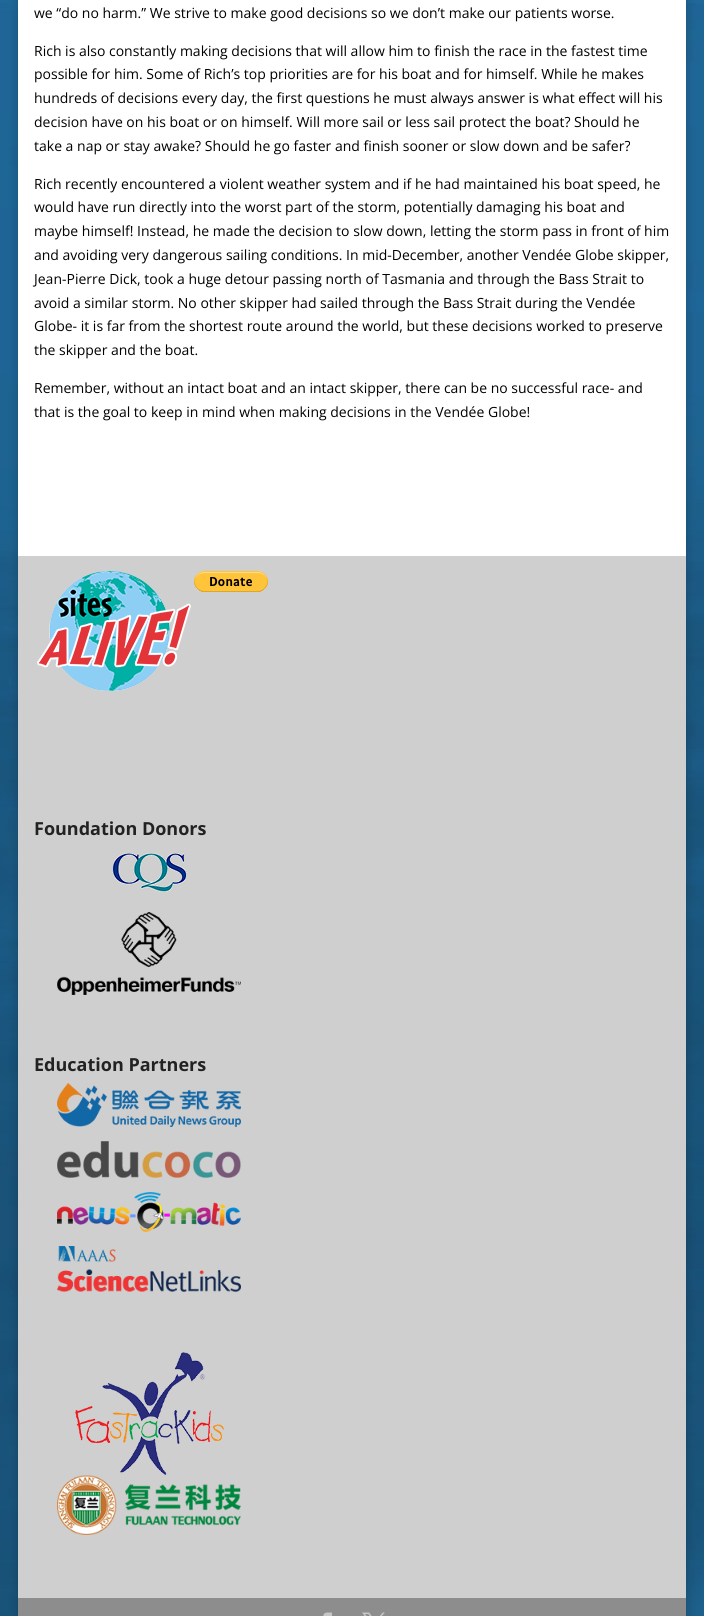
#include <cairo.h>
#include <math.h>
#include <stddef.h>

typedef struct { double x, y; const char *s; } line_t;

static void ink(cairo_t *ctx, unsigned color) {
    cairo_set_source_rgb(ctx, (color >> 16) / 255.0, (color >> 8 & 255) / 255.0, (color & 255) / 255.0);
}

static void round_path(cairo_t *ctx, double x, double y, double w, double h, double r) {
    cairo_new_sub_path(ctx);
    cairo_arc(ctx, x + w - r, y + h - r, r, 0, M_PI / 2);
    cairo_arc(ctx, x + r, y + h - r, r, M_PI / 2, M_PI);
    cairo_arc(ctx, x + r, y + r, r, M_PI, 1.5 * M_PI);
    cairo_arc(ctx, x + w - r, y + r, r, 1.5 * M_PI, 2 * M_PI);
    cairo_close_path(ctx);
}

static void blur_box(cairo_t *ctx, double x, double y, double w, double h, double r, double blur, double alpha) {
    cairo_push_group_with_content(ctx, CAIRO_CONTENT_ALPHA);
    cairo_set_operator(ctx, CAIRO_OPERATOR_SOURCE);
    for (int i = 15; i >= -15 && fmin(w, h) + blur * i / 3 > 0; i -= 2) {
        double e = blur * i / 6;
        cairo_set_source_rgba(ctx, 0, 0, 0, alpha * erfc((i - 1) / 8.5) / 2);
        round_path(ctx, x - e, y - e, w + 2 * e, h + 2 * e, fmax(0, fmin(r + e + blur * .6, fmin(w, h) / 2 + e)));
        cairo_fill(ctx);
    }
    cairo_pattern_t *soft = cairo_pop_group(ctx);
    cairo_mask(ctx, soft);
    cairo_pattern_destroy(soft);
}

static void paste(cairo_t *ctx, const char *path, double x, double y, double w, double h) {
    cairo_surface_t *image = cairo_image_surface_create_from_png(path);
    cairo_save(ctx);
    cairo_set_source_surface(ctx, image, x, y);
    cairo_rectangle(ctx, x, y, w, h);
    cairo_fill(ctx);
    cairo_restore(ctx);
    cairo_surface_destroy(image);
}

int main(void) {
    cairo_surface_t *surface = cairo_image_surface_create(CAIRO_FORMAT_RGB24, 704, 1616);
    cairo_t *ctx = cairo_create(surface);
    cairo_font_options_t *options = cairo_font_options_create();
    cairo_font_options_set_hint_metrics(options, CAIRO_HINT_METRICS_OFF);
    cairo_font_options_set_hint_style(options, CAIRO_HINT_STYLE_NONE);
    cairo_set_font_options(ctx, options);
    cairo_set_miter_limit(ctx, 4);
    ink(ctx, 0x1F6899);
    cairo_paint(ctx);
    paste(ctx, "media/1.png", 0, 3, 704, 1613);
    ink(ctx, 0x000000);
    blur_box(ctx, 18, -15, 668, 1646, 0, 5, 0.2);
    ink(ctx, 0xFFFFFF);
    cairo_rectangle(ctx, 18, 0, 668, 556);
    cairo_fill(ctx);
    cairo_select_font_face(ctx, "Open Sans", CAIRO_FONT_SLANT_NORMAL, CAIRO_FONT_WEIGHT_NORMAL);
    cairo_set_font_size(ctx, 14);
    ink(ctx, 0x000000);
    {
        static const line_t items[] = {
            {34, 18, "we “do no harm.” We strive to make good decisions so we don’t make our patients worse."},
            {34, 56, "Rich is also constantly making decisions that will allow him to finish the race in the fastest time"},
            {34, 79, "possible for him. Some of Rich’s top priorities are for his boat and for himself. While he makes"},
            {34, 103, "hundreds of decisions every day, the first questions he must always answer is what effect will his"},
            {34, 127, "decision have on his boat or on himself. Will more sail or less sail protect the boat? Should he"},
            {34, 151, "take a nap or stay awake? Should he go faster and finish sooner or slow down and be safer?"},
            {34, 189, "Rich recently encountered a violent weather system and if he had maintained his boat speed, he"},
            {34, 212, "would have run directly into the worst part of the storm, potentially damaging his boat and"},
            {34, 236, "maybe himself! Instead, he made the decision to slow down, letting the storm pass in front of him"},
            {34, 260, "and avoiding very dangerous sailing conditions. In mid-December, another Vendée Globe skipper,"},
            {34, 284, "Jean-Pierre Dick, took a huge detour passing north of Tasmania and through the Bass Strait to"},
            {34, 308, "avoid a similar storm. No other skipper had sailed through the Bass Strait during the Vendée"},
            {34, 331, "Globe- it is far from the shortest route around the world, but these decisions worked to preserve"},
            {34, 355, "the skipper and the boat."},
            {34, 393, "Remember, without an intact boat and an intact skipper, there can be no successful race- and"},
            {34, 417, "that is the goal to keep in mind when making decisions in the Vendée Globe!"},
        };
        for (size_t i = 0; i < sizeof items / sizeof *items; i++) {
            cairo_move_to(ctx, items[i].x, items[i].y);
            cairo_show_text(ctx, items[i].s);
        }
    }
    ink(ctx, 0xCFCFCF);
    cairo_rectangle(ctx, 18, 556, 668, 1042);
    cairo_fill(ctx);
    paste(ctx, "media/2.png", 37, 571, 154, 120);
    paste(ctx, "media/3.png", 194, 571, 74, 21);
    cairo_select_font_face(ctx, "Open Sans", CAIRO_FONT_SLANT_NORMAL, CAIRO_FONT_WEIGHT_BOLD);
    cairo_set_font_size(ctx, 18);
    ink(ctx, 0x222222);
    cairo_move_to(ctx, 34, 835);
    cairo_show_text(ctx, "Foundation Donors");
    paste(ctx, "media/4.png", 112, 853, 75, 39);
    paste(ctx, "media/5.png", 57, 912, 184, 83);
    cairo_move_to(ctx, 34, 1071);
    cairo_show_text(ctx, "Education Partners");
    paste(ctx, "media/6.png", 57, 1083, 184, 44);
    paste(ctx, "media/7.png", 57, 1141, 184, 37);
    paste(ctx, "media/8.png", 57, 1192, 184, 40);
    paste(ctx, "media/9.png", 57, 1246, 184, 46);
    paste(ctx, "media/10.png", 75, 1352, 149, 123);
    paste(ctx, "media/11.png", 57, 1475, 184, 60);
    ink(ctx, 0x8D8D8D);
    cairo_rectangle(ctx, 18, 1598, 668, 18);
    cairo_fill(ctx);
    paste(ctx, "media/12.png", 323, 1612, 9, 4);
    paste(ctx, "media/13.png", 362, 1612, 23, 4);
    cairo_surface_write_to_png(surface, "image.png");
    cairo_font_options_destroy(options);
    cairo_destroy(ctx);
    cairo_surface_destroy(surface);
    return 0;
}
